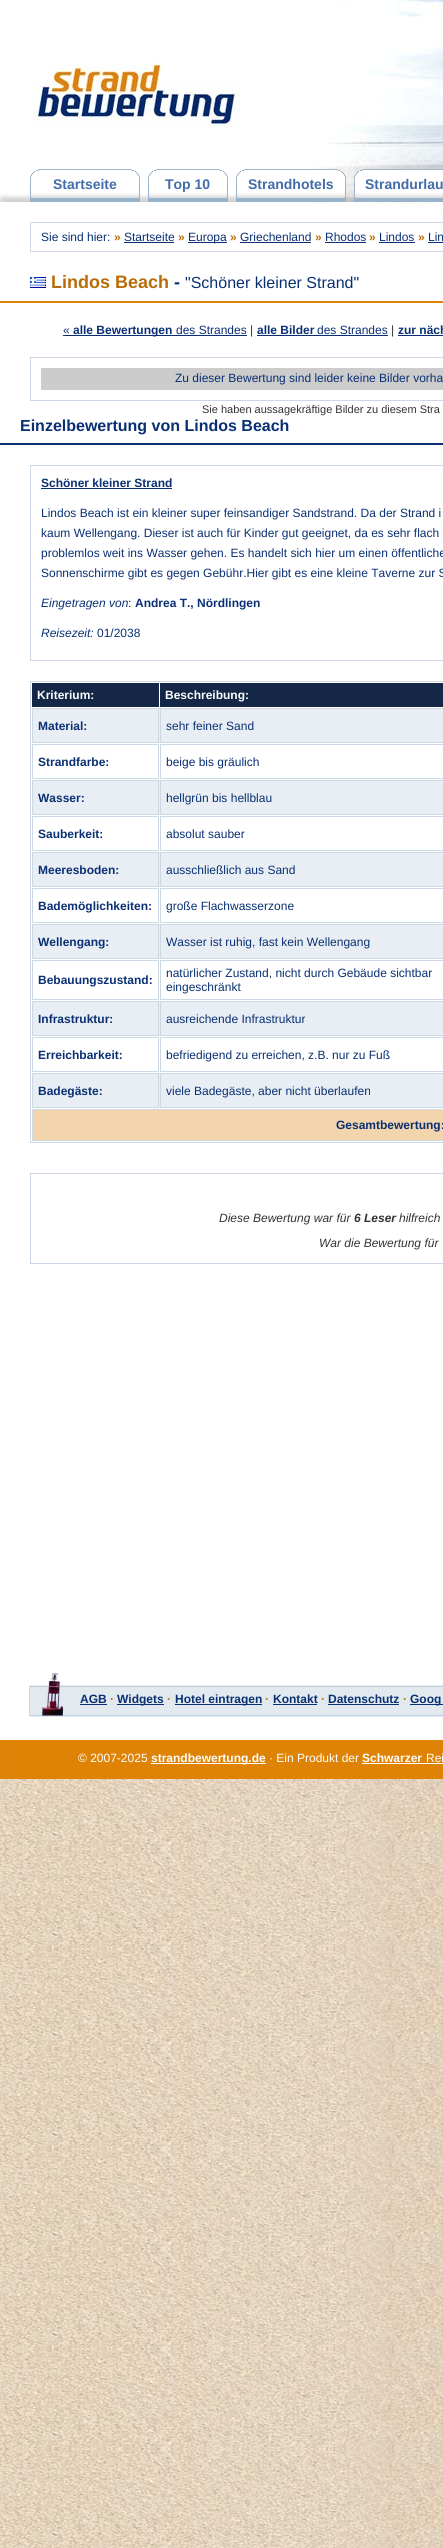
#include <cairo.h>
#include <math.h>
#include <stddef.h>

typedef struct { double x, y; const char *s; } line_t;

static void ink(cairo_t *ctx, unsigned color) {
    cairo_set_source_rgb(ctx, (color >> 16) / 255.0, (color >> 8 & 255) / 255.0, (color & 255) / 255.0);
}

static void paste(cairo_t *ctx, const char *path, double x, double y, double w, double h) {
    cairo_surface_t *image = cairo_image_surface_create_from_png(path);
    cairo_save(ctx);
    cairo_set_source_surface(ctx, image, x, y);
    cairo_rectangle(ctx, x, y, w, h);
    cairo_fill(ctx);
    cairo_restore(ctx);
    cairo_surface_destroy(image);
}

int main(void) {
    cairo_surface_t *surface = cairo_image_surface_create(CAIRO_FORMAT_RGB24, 443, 2548);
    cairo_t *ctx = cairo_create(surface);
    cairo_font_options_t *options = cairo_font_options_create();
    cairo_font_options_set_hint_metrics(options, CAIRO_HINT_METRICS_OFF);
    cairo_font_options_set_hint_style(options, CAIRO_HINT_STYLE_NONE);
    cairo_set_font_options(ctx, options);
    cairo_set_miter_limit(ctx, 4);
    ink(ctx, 0xFFFFFF);
    cairo_paint(ctx);
    paste(ctx, "media/1.png", 0, 1753, 443, 795);
    paste(ctx, "media/2.png", 0, 0, 443, 207);
    paste(ctx, "media/3.png", 32, 63, 208, 65);
    paste(ctx, "media/4.png", 30, 169, 110, 33);
    cairo_select_font_face(ctx, "Liberation Sans", CAIRO_FONT_SLANT_NORMAL, CAIRO_FONT_WEIGHT_BOLD);
    cairo_set_font_size(ctx, 14);
    ink(ctx, 0x436CAA);
    cairo_move_to(ctx, 53, 189);
    cairo_show_text(ctx, "Startseite");
    paste(ctx, "media/5.png", 148, 169, 80, 33);
    cairo_move_to(ctx, 165, 189);
    cairo_show_text(ctx, "Top 10");
    paste(ctx, "media/6.png", 236, 169, 110, 33);
    cairo_move_to(ctx, 248, 189);
    cairo_show_text(ctx, "Strandhotels");
    paste(ctx, "media/7.png", 354, 169, 89, 33);
    cairo_move_to(ctx, 365, 189);
    cairo_show_text(ctx, "Strandurlau");
    cairo_rectangle(ctx, 30.5, 222.5, 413, 29);
    ink(ctx, 0xCCD9E5);
    cairo_set_line_width(ctx, 1);
    cairo_stroke(ctx);
    cairo_select_font_face(ctx, "Liberation Sans", CAIRO_FONT_SLANT_NORMAL, CAIRO_FONT_WEIGHT_NORMAL);
    cairo_set_font_size(ctx, 12);
    ink(ctx, 0x0A3073);
    cairo_move_to(ctx, 41, 241);
    cairo_show_text(ctx, "Sie sind hier:");
    cairo_select_font_face(ctx, "Liberation Sans", CAIRO_FONT_SLANT_NORMAL, CAIRO_FONT_WEIGHT_BOLD);
    ink(ctx, 0xB86D09);
    cairo_move_to(ctx, 114, 241);
    cairo_show_text(ctx, "»");
    cairo_select_font_face(ctx, "Liberation Sans", CAIRO_FONT_SLANT_NORMAL, CAIRO_FONT_WEIGHT_NORMAL);
    ink(ctx, 0x0A3073);
    cairo_move_to(ctx, 124, 241);
    cairo_show_text(ctx, "Startseite");
    cairo_rectangle(ctx, 124, 242, 50, 1);
    cairo_fill(ctx);
    cairo_select_font_face(ctx, "Liberation Sans", CAIRO_FONT_SLANT_NORMAL, CAIRO_FONT_WEIGHT_BOLD);
    ink(ctx, 0xB86D09);
    cairo_move_to(ctx, 178, 241);
    cairo_show_text(ctx, "»");
    ink(ctx, 0x0A3073);
    cairo_rectangle(ctx, 188, 242, 39, 1);
    cairo_fill(ctx);
    cairo_select_font_face(ctx, "Liberation Sans", CAIRO_FONT_SLANT_NORMAL, CAIRO_FONT_WEIGHT_NORMAL);
    cairo_move_to(ctx, 188, 241);
    cairo_show_text(ctx, "Europa");
    cairo_select_font_face(ctx, "Liberation Sans", CAIRO_FONT_SLANT_NORMAL, CAIRO_FONT_WEIGHT_BOLD);
    ink(ctx, 0xB86D09);
    cairo_move_to(ctx, 230, 241);
    cairo_show_text(ctx, "»");
    cairo_select_font_face(ctx, "Liberation Sans", CAIRO_FONT_SLANT_NORMAL, CAIRO_FONT_WEIGHT_NORMAL);
    ink(ctx, 0x0A3073);
    cairo_move_to(ctx, 240, 241);
    cairo_show_text(ctx, "Griechenland");
    cairo_rectangle(ctx, 240, 242, 71, 1);
    cairo_fill(ctx);
    cairo_select_font_face(ctx, "Liberation Sans", CAIRO_FONT_SLANT_NORMAL, CAIRO_FONT_WEIGHT_BOLD);
    ink(ctx, 0xB86D09);
    cairo_move_to(ctx, 315, 241);
    cairo_show_text(ctx, "»");
    cairo_select_font_face(ctx, "Liberation Sans", CAIRO_FONT_SLANT_NORMAL, CAIRO_FONT_WEIGHT_NORMAL);
    ink(ctx, 0x0A3073);
    cairo_move_to(ctx, 325, 241);
    cairo_show_text(ctx, "Rhodos");
    cairo_rectangle(ctx, 325, 242, 41, 1);
    cairo_fill(ctx);
    cairo_select_font_face(ctx, "Liberation Sans", CAIRO_FONT_SLANT_NORMAL, CAIRO_FONT_WEIGHT_BOLD);
    ink(ctx, 0xB86D09);
    cairo_move_to(ctx, 369, 241);
    cairo_show_text(ctx, "»");
    cairo_select_font_face(ctx, "Liberation Sans", CAIRO_FONT_SLANT_NORMAL, CAIRO_FONT_WEIGHT_NORMAL);
    ink(ctx, 0x0A3073);
    cairo_move_to(ctx, 379, 241);
    cairo_show_text(ctx, "Lindos");
    cairo_rectangle(ctx, 379, 242, 36, 1);
    cairo_fill(ctx);
    cairo_select_font_face(ctx, "Liberation Sans", CAIRO_FONT_SLANT_NORMAL, CAIRO_FONT_WEIGHT_BOLD);
    ink(ctx, 0xB86D09);
    cairo_move_to(ctx, 418, 241);
    cairo_show_text(ctx, "»");
    cairo_select_font_face(ctx, "Liberation Sans", CAIRO_FONT_SLANT_NORMAL, CAIRO_FONT_WEIGHT_NORMAL);
    ink(ctx, 0x0A3073);
    cairo_move_to(ctx, 428, 241);
    cairo_show_text(ctx, "Lin");
    cairo_rectangle(ctx, 428, 242, 15, 1);
    cairo_fill(ctx);
    ink(ctx, 0xDE8306);
    cairo_rectangle(ctx, 0, 301, 443, 2);
    cairo_fill(ctx);
    paste(ctx, "media/8.png", 30, 277, 16, 11);
    cairo_select_font_face(ctx, "Liberation Sans", CAIRO_FONT_SLANT_NORMAL, CAIRO_FONT_WEIGHT_BOLD);
    cairo_set_font_size(ctx, 18);
    ink(ctx, 0xB86D09);
    cairo_move_to(ctx, 51, 288);
    cairo_show_text(ctx, "Lindos Beach");
    ink(ctx, 0x0A3073);
    cairo_move_to(ctx, 174, 288);
    cairo_show_text(ctx, "-");
    cairo_select_font_face(ctx, "Liberation Sans", CAIRO_FONT_SLANT_NORMAL, CAIRO_FONT_WEIGHT_NORMAL);
    cairo_set_font_size(ctx, 16);
    cairo_move_to(ctx, 185, 288);
    cairo_show_text(ctx, "\"Schöner kleiner Strand\"");
    cairo_set_font_size(ctx, 12);
    cairo_move_to(ctx, 63, 334);
    cairo_show_text(ctx, "«");
    cairo_rectangle(ctx, 63, 335, 184, 1);
    cairo_fill(ctx);
    cairo_select_font_face(ctx, "Liberation Sans", CAIRO_FONT_SLANT_NORMAL, CAIRO_FONT_WEIGHT_BOLD);
    cairo_move_to(ctx, 73, 334);
    cairo_show_text(ctx, "alle Bewertungen");
    cairo_select_font_face(ctx, "Liberation Sans", CAIRO_FONT_SLANT_NORMAL, CAIRO_FONT_WEIGHT_NORMAL);
    cairo_move_to(ctx, 176, 334);
    cairo_show_text(ctx, "des Strandes");
    ink(ctx, 0x333333);
    cairo_move_to(ctx, 250, 334);
    cairo_show_text(ctx, "|");
    cairo_select_font_face(ctx, "Liberation Sans", CAIRO_FONT_SLANT_NORMAL, CAIRO_FONT_WEIGHT_BOLD);
    ink(ctx, 0x0A3073);
    cairo_move_to(ctx, 257, 334);
    cairo_show_text(ctx, "alle Bilder");
    cairo_rectangle(ctx, 257, 335, 131, 1);
    cairo_fill(ctx);
    cairo_select_font_face(ctx, "Liberation Sans", CAIRO_FONT_SLANT_NORMAL, CAIRO_FONT_WEIGHT_NORMAL);
    cairo_move_to(ctx, 317, 334);
    cairo_show_text(ctx, "des Strandes");
    ink(ctx, 0x333333);
    cairo_move_to(ctx, 391, 334);
    cairo_show_text(ctx, "|");
    cairo_select_font_face(ctx, "Liberation Sans", CAIRO_FONT_SLANT_NORMAL, CAIRO_FONT_WEIGHT_BOLD);
    ink(ctx, 0x0A3073);
    cairo_move_to(ctx, 398, 334);
    cairo_show_text(ctx, "zur näch");
    cairo_rectangle(ctx, 398, 335, 45, 1);
    cairo_fill(ctx);
    cairo_rectangle(ctx, 30.5, 357.5, 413, 43);
    ink(ctx, 0xCCD9E5);
    cairo_stroke(ctx);
    ink(ctx, 0xCCCCCC);
    cairo_rectangle(ctx, 41, 368, 402, 22);
    cairo_fill(ctx);
    cairo_select_font_face(ctx, "Liberation Sans", CAIRO_FONT_SLANT_NORMAL, CAIRO_FONT_WEIGHT_NORMAL);
    ink(ctx, 0x0A3073);
    cairo_move_to(ctx, 175, 382);
    cairo_show_text(ctx, "Zu dieser Bewertung sind leider keine Bilder vorha");
    cairo_set_font_size(ctx, 11);
    ink(ctx, 0x333333);
    cairo_move_to(ctx, 202, 413);
    cairo_show_text(ctx, "Sie haben aussagekräftige Bilder zu diesem Stra");
    ink(ctx, 0x0A3073);
    cairo_rectangle(ctx, 0, 443, 443, 2);
    cairo_fill(ctx);
    cairo_select_font_face(ctx, "Liberation Sans", CAIRO_FONT_SLANT_NORMAL, CAIRO_FONT_WEIGHT_BOLD);
    cairo_set_font_size(ctx, 16);
    cairo_move_to(ctx, 20, 431);
    cairo_show_text(ctx, "Einzelbewertung von Lindos Beach");
    cairo_rectangle(ctx, 30.5, 465.5, 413, 195);
    ink(ctx, 0xCCD9E5);
    cairo_stroke(ctx);
    cairo_set_font_size(ctx, 12);
    ink(ctx, 0x0A3073);
    cairo_move_to(ctx, 41, 487);
    cairo_show_text(ctx, "Schöner kleiner Strand");
    cairo_rectangle(ctx, 41, 488, 131, 1);
    cairo_fill(ctx);
    cairo_select_font_face(ctx, "Liberation Sans", CAIRO_FONT_SLANT_NORMAL, CAIRO_FONT_WEIGHT_NORMAL);
    {
        static const line_t items[] = {
            {41, 517, "Lindos Beach ist ein kleiner super feinsandiger Sandstrand. Da der Strand i"},
            {41, 537, "kaum Wellengang. Dieser ist auch für Kinder gut geeignet, da es sehr flach"},
            {41, 557, "problemlos weit ins Wasser gehen. Es handelt sich hier um einen öffentliche"},
            {41, 577, "Sonnenschirme gibt es gegen Gebühr.Hier gibt es eine kleine Taverne zur S"},
        };
        for (size_t i = 0; i < sizeof items / sizeof *items; i++) {
            cairo_move_to(ctx, items[i].x, items[i].y);
            cairo_show_text(ctx, items[i].s);
        }
    }
    cairo_select_font_face(ctx, "Liberation Sans", CAIRO_FONT_SLANT_ITALIC, CAIRO_FONT_WEIGHT_NORMAL);
    cairo_move_to(ctx, 41, 607);
    cairo_show_text(ctx, "Eingetragen von");
    cairo_select_font_face(ctx, "Liberation Sans", CAIRO_FONT_SLANT_NORMAL, CAIRO_FONT_WEIGHT_NORMAL);
    cairo_move_to(ctx, 128, 607);
    cairo_show_text(ctx, ":");
    cairo_select_font_face(ctx, "Liberation Sans", CAIRO_FONT_SLANT_NORMAL, CAIRO_FONT_WEIGHT_BOLD);
    cairo_move_to(ctx, 135, 607);
    cairo_show_text(ctx, "Andrea T., Nördlingen");
    cairo_select_font_face(ctx, "Liberation Sans", CAIRO_FONT_SLANT_ITALIC, CAIRO_FONT_WEIGHT_NORMAL);
    cairo_move_to(ctx, 41, 637);
    cairo_show_text(ctx, "Reisezeit:");
    cairo_select_font_face(ctx, "Liberation Sans", CAIRO_FONT_SLANT_NORMAL, CAIRO_FONT_WEIGHT_NORMAL);
    cairo_move_to(ctx, 97, 637);
    cairo_show_text(ctx, "01/2038");
    cairo_rectangle(ctx, 30.5, 681.5, 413, 461);
    ink(ctx, 0xCCD9E5);
    cairo_stroke(ctx);
    ink(ctx, 0x142747);
    cairo_rectangle(ctx, 32, 683, 127, 24);
    cairo_fill(ctx);
    cairo_select_font_face(ctx, "Liberation Sans", CAIRO_FONT_SLANT_NORMAL, CAIRO_FONT_WEIGHT_BOLD);
    ink(ctx, 0xFFFFFF);
    cairo_move_to(ctx, 37, 699);
    cairo_show_text(ctx, "Kriterium:");
    ink(ctx, 0x142747);
    cairo_rectangle(ctx, 160, 683, 283, 24);
    cairo_fill(ctx);
    ink(ctx, 0xFFFFFF);
    cairo_move_to(ctx, 165, 699);
    cairo_show_text(ctx, "Beschreibung:");
    ink(ctx, 0xE8EEF3);
    cairo_rectangle(ctx, 33, 708, 410, 35);
    cairo_fill(ctx);
    cairo_rectangle(ctx, 32.5, 708.5, 126, 34);
    ink(ctx, 0xCCD9E5);
    cairo_stroke(ctx);
    ink(ctx, 0x0A3073);
    cairo_move_to(ctx, 38, 730);
    cairo_show_text(ctx, "Material:");
    cairo_rectangle(ctx, 160.5, 708.5, 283, 34);
    ink(ctx, 0xCCD9E5);
    cairo_stroke(ctx);
    cairo_select_font_face(ctx, "Liberation Sans", CAIRO_FONT_SLANT_NORMAL, CAIRO_FONT_WEIGHT_NORMAL);
    ink(ctx, 0x0A3073);
    cairo_move_to(ctx, 166, 730);
    cairo_show_text(ctx, "sehr feiner Sand");
    cairo_rectangle(ctx, 32.5, 744.5, 126, 34);
    ink(ctx, 0xCCD9E5);
    cairo_stroke(ctx);
    cairo_select_font_face(ctx, "Liberation Sans", CAIRO_FONT_SLANT_NORMAL, CAIRO_FONT_WEIGHT_BOLD);
    ink(ctx, 0x0A3073);
    cairo_move_to(ctx, 38, 766);
    cairo_show_text(ctx, "Strandfarbe:");
    cairo_rectangle(ctx, 160.5, 744.5, 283, 34);
    ink(ctx, 0xCCD9E5);
    cairo_stroke(ctx);
    cairo_select_font_face(ctx, "Liberation Sans", CAIRO_FONT_SLANT_NORMAL, CAIRO_FONT_WEIGHT_NORMAL);
    ink(ctx, 0x0A3073);
    cairo_move_to(ctx, 166, 766);
    cairo_show_text(ctx, "beige bis gräulich");
    ink(ctx, 0xE8EEF3);
    cairo_rectangle(ctx, 33, 780, 410, 35);
    cairo_fill(ctx);
    cairo_rectangle(ctx, 32.5, 780.5, 126, 34);
    ink(ctx, 0xCCD9E5);
    cairo_stroke(ctx);
    cairo_select_font_face(ctx, "Liberation Sans", CAIRO_FONT_SLANT_NORMAL, CAIRO_FONT_WEIGHT_BOLD);
    ink(ctx, 0x0A3073);
    cairo_move_to(ctx, 38, 802);
    cairo_show_text(ctx, "Wasser:");
    cairo_rectangle(ctx, 160.5, 780.5, 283, 34);
    ink(ctx, 0xCCD9E5);
    cairo_stroke(ctx);
    cairo_select_font_face(ctx, "Liberation Sans", CAIRO_FONT_SLANT_NORMAL, CAIRO_FONT_WEIGHT_NORMAL);
    ink(ctx, 0x0A3073);
    cairo_move_to(ctx, 166, 802);
    cairo_show_text(ctx, "hellgrün bis hellblau");
    cairo_rectangle(ctx, 32.5, 816.5, 126, 34);
    ink(ctx, 0xCCD9E5);
    cairo_stroke(ctx);
    cairo_select_font_face(ctx, "Liberation Sans", CAIRO_FONT_SLANT_NORMAL, CAIRO_FONT_WEIGHT_BOLD);
    ink(ctx, 0x0A3073);
    cairo_move_to(ctx, 38, 838);
    cairo_show_text(ctx, "Sauberkeit:");
    cairo_rectangle(ctx, 160.5, 816.5, 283, 34);
    ink(ctx, 0xCCD9E5);
    cairo_stroke(ctx);
    cairo_select_font_face(ctx, "Liberation Sans", CAIRO_FONT_SLANT_NORMAL, CAIRO_FONT_WEIGHT_NORMAL);
    ink(ctx, 0x0A3073);
    cairo_move_to(ctx, 166, 838);
    cairo_show_text(ctx, "absolut sauber");
    ink(ctx, 0xE8EEF3);
    cairo_rectangle(ctx, 33, 852, 410, 35);
    cairo_fill(ctx);
    cairo_rectangle(ctx, 32.5, 852.5, 126, 34);
    ink(ctx, 0xCCD9E5);
    cairo_stroke(ctx);
    cairo_select_font_face(ctx, "Liberation Sans", CAIRO_FONT_SLANT_NORMAL, CAIRO_FONT_WEIGHT_BOLD);
    ink(ctx, 0x0A3073);
    cairo_move_to(ctx, 38, 874);
    cairo_show_text(ctx, "Meeresboden:");
    cairo_rectangle(ctx, 160.5, 852.5, 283, 34);
    ink(ctx, 0xCCD9E5);
    cairo_stroke(ctx);
    cairo_select_font_face(ctx, "Liberation Sans", CAIRO_FONT_SLANT_NORMAL, CAIRO_FONT_WEIGHT_NORMAL);
    ink(ctx, 0x0A3073);
    cairo_move_to(ctx, 166, 874);
    cairo_show_text(ctx, "ausschließlich aus Sand");
    cairo_rectangle(ctx, 32.5, 888.5, 126, 34);
    ink(ctx, 0xCCD9E5);
    cairo_stroke(ctx);
    cairo_select_font_face(ctx, "Liberation Sans", CAIRO_FONT_SLANT_NORMAL, CAIRO_FONT_WEIGHT_BOLD);
    ink(ctx, 0x0A3073);
    cairo_move_to(ctx, 38, 910);
    cairo_show_text(ctx, "Bademöglichkeiten:");
    cairo_rectangle(ctx, 160.5, 888.5, 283, 34);
    ink(ctx, 0xCCD9E5);
    cairo_stroke(ctx);
    cairo_select_font_face(ctx, "Liberation Sans", CAIRO_FONT_SLANT_NORMAL, CAIRO_FONT_WEIGHT_NORMAL);
    ink(ctx, 0x0A3073);
    cairo_move_to(ctx, 166, 910);
    cairo_show_text(ctx, "große Flachwasserzone");
    ink(ctx, 0xE8EEF3);
    cairo_rectangle(ctx, 33, 924, 410, 35);
    cairo_fill(ctx);
    cairo_rectangle(ctx, 32.5, 924.5, 126, 34);
    ink(ctx, 0xCCD9E5);
    cairo_stroke(ctx);
    cairo_select_font_face(ctx, "Liberation Sans", CAIRO_FONT_SLANT_NORMAL, CAIRO_FONT_WEIGHT_BOLD);
    ink(ctx, 0x0A3073);
    cairo_move_to(ctx, 38, 946);
    cairo_show_text(ctx, "Wellengang:");
    cairo_rectangle(ctx, 160.5, 924.5, 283, 34);
    ink(ctx, 0xCCD9E5);
    cairo_stroke(ctx);
    cairo_select_font_face(ctx, "Liberation Sans", CAIRO_FONT_SLANT_NORMAL, CAIRO_FONT_WEIGHT_NORMAL);
    ink(ctx, 0x0A3073);
    cairo_move_to(ctx, 166, 946);
    cairo_show_text(ctx, "Wasser ist ruhig, fast kein Wellengang");
    cairo_rectangle(ctx, 32.5, 960.5, 126, 39);
    ink(ctx, 0xCCD9E5);
    cairo_stroke(ctx);
    cairo_select_font_face(ctx, "Liberation Sans", CAIRO_FONT_SLANT_NORMAL, CAIRO_FONT_WEIGHT_BOLD);
    ink(ctx, 0x0A3073);
    cairo_move_to(ctx, 38, 984);
    cairo_show_text(ctx, "Bebauungszustand:");
    cairo_rectangle(ctx, 160.5, 960.5, 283, 39);
    ink(ctx, 0xCCD9E5);
    cairo_stroke(ctx);
    cairo_select_font_face(ctx, "Liberation Sans", CAIRO_FONT_SLANT_NORMAL, CAIRO_FONT_WEIGHT_NORMAL);
    ink(ctx, 0x0A3073);
    cairo_move_to(ctx, 166, 977);
    cairo_show_text(ctx, "natürlicher Zustand, nicht durch Gebäude sichtbar");
    cairo_move_to(ctx, 166, 991);
    cairo_show_text(ctx, "eingeschränkt");
    ink(ctx, 0xE8EEF3);
    cairo_rectangle(ctx, 33, 1001, 410, 35);
    cairo_fill(ctx);
    cairo_rectangle(ctx, 32.5, 1001.5, 126, 34);
    ink(ctx, 0xCCD9E5);
    cairo_stroke(ctx);
    cairo_select_font_face(ctx, "Liberation Sans", CAIRO_FONT_SLANT_NORMAL, CAIRO_FONT_WEIGHT_BOLD);
    ink(ctx, 0x0A3073);
    cairo_move_to(ctx, 38, 1023);
    cairo_show_text(ctx, "Infrastruktur:");
    cairo_rectangle(ctx, 160.5, 1001.5, 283, 34);
    ink(ctx, 0xCCD9E5);
    cairo_stroke(ctx);
    cairo_select_font_face(ctx, "Liberation Sans", CAIRO_FONT_SLANT_NORMAL, CAIRO_FONT_WEIGHT_NORMAL);
    ink(ctx, 0x0A3073);
    cairo_move_to(ctx, 166, 1023);
    cairo_show_text(ctx, "ausreichende Infrastruktur");
    cairo_rectangle(ctx, 32.5, 1037.5, 126, 34);
    ink(ctx, 0xCCD9E5);
    cairo_stroke(ctx);
    cairo_select_font_face(ctx, "Liberation Sans", CAIRO_FONT_SLANT_NORMAL, CAIRO_FONT_WEIGHT_BOLD);
    ink(ctx, 0x0A3073);
    cairo_move_to(ctx, 38, 1059);
    cairo_show_text(ctx, "Erreichbarkeit:");
    cairo_rectangle(ctx, 160.5, 1037.5, 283, 34);
    ink(ctx, 0xCCD9E5);
    cairo_stroke(ctx);
    cairo_select_font_face(ctx, "Liberation Sans", CAIRO_FONT_SLANT_NORMAL, CAIRO_FONT_WEIGHT_NORMAL);
    ink(ctx, 0x0A3073);
    cairo_move_to(ctx, 166, 1059);
    cairo_show_text(ctx, "befriedigend zu erreichen, z.B. nur zu Fuß");
    ink(ctx, 0xE8EEF3);
    cairo_rectangle(ctx, 33, 1073, 410, 35);
    cairo_fill(ctx);
    cairo_rectangle(ctx, 32.5, 1073.5, 126, 34);
    ink(ctx, 0xCCD9E5);
    cairo_stroke(ctx);
    cairo_select_font_face(ctx, "Liberation Sans", CAIRO_FONT_SLANT_NORMAL, CAIRO_FONT_WEIGHT_BOLD);
    ink(ctx, 0x0A3073);
    cairo_move_to(ctx, 38, 1095);
    cairo_show_text(ctx, "Badegäste:");
    cairo_rectangle(ctx, 160.5, 1073.5, 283, 34);
    ink(ctx, 0xCCD9E5);
    cairo_stroke(ctx);
    cairo_select_font_face(ctx, "Liberation Sans", CAIRO_FONT_SLANT_NORMAL, CAIRO_FONT_WEIGHT_NORMAL);
    ink(ctx, 0x0A3073);
    cairo_move_to(ctx, 166, 1095);
    cairo_show_text(ctx, "viele Badegäste, aber nicht überlaufen");
    ink(ctx, 0xF2D5AD);
    cairo_rectangle(ctx, 32.5, 1109.5, 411, 31);
    cairo_fill_preserve(ctx);
    ink(ctx, 0xCCD9E5);
    cairo_stroke(ctx);
    cairo_select_font_face(ctx, "Liberation Sans", CAIRO_FONT_SLANT_NORMAL, CAIRO_FONT_WEIGHT_BOLD);
    ink(ctx, 0x0A3073);
    cairo_move_to(ctx, 336, 1129);
    cairo_show_text(ctx, "Gesamtbewertung:");
    cairo_rectangle(ctx, 30.5, 1173.5, 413, 90);
    ink(ctx, 0xCCD9E5);
    cairo_stroke(ctx);
    cairo_select_font_face(ctx, "Liberation Sans", CAIRO_FONT_SLANT_ITALIC, CAIRO_FONT_WEIGHT_NORMAL);
    ink(ctx, 0x333333);
    cairo_move_to(ctx, 219, 1222);
    cairo_show_text(ctx, "Diese Bewertung war für");
    cairo_select_font_face(ctx, "Liberation Sans", CAIRO_FONT_SLANT_ITALIC, CAIRO_FONT_WEIGHT_BOLD);
    cairo_move_to(ctx, 354, 1222);
    cairo_show_text(ctx, "6 Leser");
    cairo_select_font_face(ctx, "Liberation Sans", CAIRO_FONT_SLANT_ITALIC, CAIRO_FONT_WEIGHT_NORMAL);
    cairo_move_to(ctx, 399, 1222);
    cairo_show_text(ctx, "hilfreich");
    cairo_move_to(ctx, 319, 1247);
    cairo_show_text(ctx, "War die Bewertung für");
    paste(ctx, "media/9.png", 0, 1626, 443, 153);
    cairo_select_font_face(ctx, "Liberation Sans", CAIRO_FONT_SLANT_NORMAL, CAIRO_FONT_WEIGHT_BOLD);
    ink(ctx, 0x0A3073);
    cairo_move_to(ctx, 80, 1703);
    cairo_show_text(ctx, "AGB");
    cairo_rectangle(ctx, 80, 1704, 27, 1);
    cairo_fill(ctx);
    ink(ctx, 0xB86D09);
    cairo_move_to(ctx, 110, 1703);
    cairo_show_text(ctx, "·");
    ink(ctx, 0x0A3073);
    cairo_rectangle(ctx, 117, 1704, 47, 1);
    cairo_fill(ctx);
    cairo_move_to(ctx, 117, 1703);
    cairo_show_text(ctx, "Widgets");
    ink(ctx, 0xB86D09);
    cairo_move_to(ctx, 167, 1703);
    cairo_show_text(ctx, "·");
    ink(ctx, 0x0A3073);
    cairo_rectangle(ctx, 175, 1704, 87, 1);
    cairo_fill(ctx);
    cairo_move_to(ctx, 175, 1703);
    cairo_show_text(ctx, "Hotel eintragen");
    ink(ctx, 0xB86D09);
    cairo_move_to(ctx, 265, 1703);
    cairo_show_text(ctx, "·");
    ink(ctx, 0x0A3073);
    cairo_move_to(ctx, 273, 1703);
    cairo_show_text(ctx, "Kontakt");
    cairo_rectangle(ctx, 273, 1704, 44, 1);
    cairo_fill(ctx);
    ink(ctx, 0xB86D09);
    cairo_move_to(ctx, 321, 1703);
    cairo_show_text(ctx, "·");
    ink(ctx, 0x0A3073);
    cairo_move_to(ctx, 328, 1703);
    cairo_show_text(ctx, "Datenschutz");
    cairo_rectangle(ctx, 328, 1704, 71, 1);
    cairo_fill(ctx);
    ink(ctx, 0xB86D09);
    cairo_move_to(ctx, 403, 1703);
    cairo_show_text(ctx, "·");
    ink(ctx, 0x0A3073);
    cairo_rectangle(ctx, 410, 1704, 33, 1);
    cairo_fill(ctx);
    cairo_move_to(ctx, 410, 1703);
    cairo_show_text(ctx, "Goog");
    cairo_select_font_face(ctx, "Liberation Sans", CAIRO_FONT_SLANT_NORMAL, CAIRO_FONT_WEIGHT_NORMAL);
    ink(ctx, 0xFFFFFF);
    cairo_move_to(ctx, 78, 1762);
    cairo_show_text(ctx, "© 2007-2025");
    cairo_rectangle(ctx, 151, 1763, 115, 1);
    cairo_fill(ctx);
    cairo_select_font_face(ctx, "Liberation Sans", CAIRO_FONT_SLANT_NORMAL, CAIRO_FONT_WEIGHT_BOLD);
    cairo_move_to(ctx, 151, 1762);
    cairo_show_text(ctx, "strandbewertung.de");
    cairo_select_font_face(ctx, "Liberation Sans", CAIRO_FONT_SLANT_NORMAL, CAIRO_FONT_WEIGHT_NORMAL);
    cairo_move_to(ctx, 269, 1762);
    cairo_show_text(ctx, "· Ein Produkt der");
    cairo_select_font_face(ctx, "Liberation Sans", CAIRO_FONT_SLANT_NORMAL, CAIRO_FONT_WEIGHT_BOLD);
    cairo_move_to(ctx, 362, 1762);
    cairo_show_text(ctx, "Schwarzer");
    cairo_rectangle(ctx, 362, 1763, 81, 1);
    cairo_fill(ctx);
    cairo_select_font_face(ctx, "Liberation Sans", CAIRO_FONT_SLANT_NORMAL, CAIRO_FONT_WEIGHT_NORMAL);
    cairo_move_to(ctx, 426, 1762);
    cairo_show_text(ctx, "Rei");
    cairo_surface_write_to_png(surface, "image.png");
    cairo_font_options_destroy(options);
    cairo_destroy(ctx);
    cairo_surface_destroy(surface);
    return 0;
}
